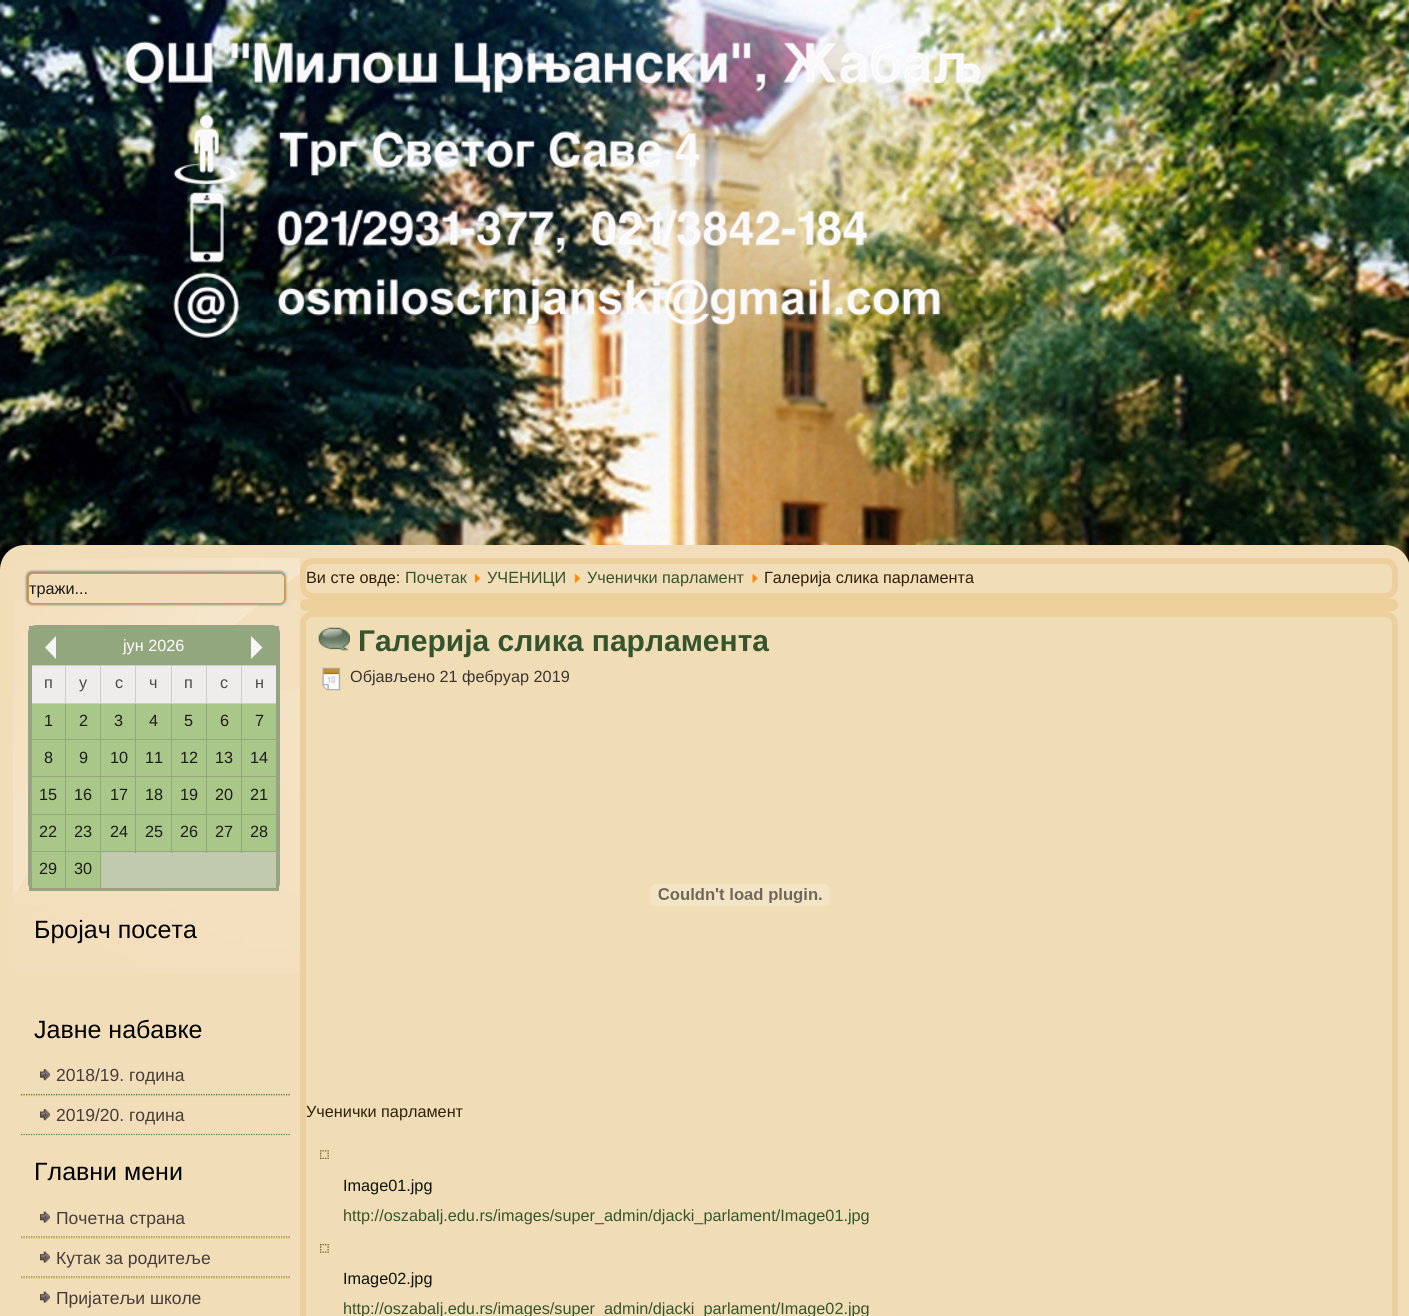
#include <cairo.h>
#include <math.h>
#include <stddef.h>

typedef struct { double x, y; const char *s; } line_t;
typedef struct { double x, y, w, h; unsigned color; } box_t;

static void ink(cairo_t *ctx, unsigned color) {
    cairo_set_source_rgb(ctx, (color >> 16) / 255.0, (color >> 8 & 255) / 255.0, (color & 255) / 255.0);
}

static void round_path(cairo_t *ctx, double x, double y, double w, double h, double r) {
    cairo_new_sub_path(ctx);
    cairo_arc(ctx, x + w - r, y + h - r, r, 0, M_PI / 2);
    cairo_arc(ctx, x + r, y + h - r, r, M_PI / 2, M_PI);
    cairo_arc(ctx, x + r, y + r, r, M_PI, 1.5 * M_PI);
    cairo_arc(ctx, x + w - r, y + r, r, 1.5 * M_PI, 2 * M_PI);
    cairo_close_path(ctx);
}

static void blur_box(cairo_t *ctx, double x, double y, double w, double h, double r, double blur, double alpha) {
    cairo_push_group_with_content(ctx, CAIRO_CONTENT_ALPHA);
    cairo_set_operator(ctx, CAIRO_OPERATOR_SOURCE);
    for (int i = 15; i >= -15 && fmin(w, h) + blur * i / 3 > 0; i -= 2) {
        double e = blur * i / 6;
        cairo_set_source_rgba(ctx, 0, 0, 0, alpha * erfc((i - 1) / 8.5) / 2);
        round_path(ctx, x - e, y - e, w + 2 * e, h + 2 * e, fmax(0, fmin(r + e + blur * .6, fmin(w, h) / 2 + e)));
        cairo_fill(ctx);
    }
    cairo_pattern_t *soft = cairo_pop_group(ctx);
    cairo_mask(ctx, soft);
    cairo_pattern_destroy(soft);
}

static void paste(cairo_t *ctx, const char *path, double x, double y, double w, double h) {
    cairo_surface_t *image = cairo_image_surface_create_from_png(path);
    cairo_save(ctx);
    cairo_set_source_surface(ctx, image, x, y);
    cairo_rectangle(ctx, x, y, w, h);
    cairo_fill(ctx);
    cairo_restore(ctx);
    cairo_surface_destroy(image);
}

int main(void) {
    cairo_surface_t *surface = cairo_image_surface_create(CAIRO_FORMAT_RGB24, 1409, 1316);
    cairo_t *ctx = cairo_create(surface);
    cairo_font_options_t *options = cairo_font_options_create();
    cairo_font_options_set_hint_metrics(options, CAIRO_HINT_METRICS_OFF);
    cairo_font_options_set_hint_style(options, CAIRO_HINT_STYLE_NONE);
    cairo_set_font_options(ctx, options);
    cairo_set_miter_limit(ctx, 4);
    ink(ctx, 0xFFFFFF);
    cairo_paint(ctx);
    paste(ctx, "media/1.png", 0, 0, 1409, 570);
    paste(ctx, "media/2.png", 126, 41, 855, 297);
    ink(ctx, 0xF2DDB9);
    cairo_new_path(ctx);
    cairo_move_to(ctx, 25, 545);
    cairo_line_to(ctx, 1385, 545);
    cairo_curve_to(ctx, 1399, 545, 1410, 556, 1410, 570);
    cairo_line_to(ctx, 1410, 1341);
    cairo_line_to(ctx, 0, 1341);
    cairo_line_to(ctx, 0, 570);
    cairo_curve_to(ctx, 0, 556, 11, 545, 25, 545);
    cairo_close_path(ctx);
    cairo_fill(ctx);
    paste(ctx, "media/3.png", 13, 558, 287, 415);
    ink(ctx, 0x000000);
    blur_box(ctx, 26, 571, 260, 34, 6, 1, 0.35);
    ink(ctx, 0xF2DDB9);
    round_path(ctx, 28.5, 573.5, 256, 30, 4.5);
    cairo_fill_preserve(ctx);
    ink(ctx, 0xD99A2D);
    cairo_set_line_width(ctx, 1);
    cairo_stroke(ctx);
    cairo_select_font_face(ctx, "Liberation Sans", CAIRO_FONT_SLANT_NORMAL, CAIRO_FONT_WEIGHT_NORMAL);
    cairo_set_font_size(ctx, 16.25);
    ink(ctx, 0x1E1A19);
    cairo_move_to(ctx, 29, 594);
    cairo_show_text(ctx, "тражи...");
    round_path(ctx, 28.5, 625.5, 251, 265, 7.5);
    ink(ctx, 0x97A482);
    cairo_stroke(ctx);
    {
        static const box_t items[] = {
            {32, 704, 244, 184, 0xA8C789},
            {29, 626, 250, 3, 0x97A482},
            {241, 665, 38, 1, 0xCCCCCC},
            {241, 739, 38, 1, 0x93A77F},
            {241, 776, 38, 1, 0x93A77F},
            {241, 814, 38, 1, 0x93A77F},
            {101, 852, 175, 36, 0xC1CAAF},
            {100, 851, 179, 1, 0x93A77F},
            {241, 814, 1, 39, 0x93A77F},
            {206, 814, 37, 1, 0x93A77F},
            {241, 776, 1, 39, 0x93A77F},
            {206, 776, 37, 1, 0x93A77F},
            {241, 739, 1, 39, 0x93A77F},
            {206, 739, 37, 1, 0x93A77F},
            {241, 703, 1, 37, 0x93A77F},
            {241, 703, 38, 1, 0xCCCCCC},
            {276, 626, 3, 264, 0x97A482},
            {100, 851, 1, 39, 0x93A77F},
            {65, 851, 36, 1, 0x93A77F},
            {65, 851, 1, 39, 0x93A77F},
            {29, 888, 250, 3, 0x97A482},
            {241, 665, 1, 39, 0xCCCCCC},
            {206, 665, 37, 1, 0xCCCCCC},
            {206, 814, 1, 39, 0x93A77F},
            {171, 814, 37, 1, 0x93A77F},
            {206, 776, 1, 39, 0x93A77F},
            {171, 776, 37, 1, 0x93A77F},
            {206, 739, 1, 39, 0x93A77F},
            {171, 739, 37, 1, 0x93A77F},
            {206, 703, 1, 37, 0x93A77F},
            {206, 703, 37, 1, 0xCCCCCC},
            {206, 665, 1, 39, 0xCCCCCC},
            {171, 665, 37, 1, 0xCCCCCC},
            {171, 814, 1, 39, 0x93A77F},
            {135, 814, 38, 1, 0x93A77F},
            {171, 776, 1, 39, 0x93A77F},
            {135, 776, 38, 1, 0x93A77F},
            {171, 739, 1, 39, 0x93A77F},
            {135, 739, 38, 1, 0x93A77F},
            {171, 703, 1, 37, 0x93A77F},
            {171, 703, 37, 1, 0xCCCCCC},
            {171, 665, 1, 39, 0xCCCCCC},
            {135, 665, 38, 1, 0xCCCCCC},
            {135, 814, 1, 39, 0x93A77F},
            {100, 814, 36, 1, 0x93A77F},
            {135, 776, 1, 39, 0x93A77F},
            {100, 776, 36, 1, 0x93A77F},
            {135, 739, 1, 39, 0x93A77F},
            {100, 739, 36, 1, 0x93A77F},
            {135, 703, 1, 37, 0x93A77F},
            {135, 703, 38, 1, 0xCCCCCC},
            {135, 665, 1, 39, 0xCCCCCC},
            {100, 665, 36, 1, 0xCCCCCC},
            {100, 814, 1, 39, 0x93A77F},
            {65, 814, 36, 1, 0x93A77F},
            {100, 776, 1, 39, 0x93A77F},
            {65, 776, 36, 1, 0x93A77F},
            {100, 739, 1, 39, 0x93A77F},
            {65, 739, 36, 1, 0x93A77F},
            {100, 703, 1, 37, 0x93A77F},
            {100, 703, 36, 1, 0xCCCCCC},
            {100, 665, 1, 39, 0xCCCCCC},
            {65, 665, 36, 1, 0xCCCCCC},
            {30, 851, 36, 1, 0x93A77F},
            {65, 814, 1, 39, 0x93A77F},
            {30, 814, 36, 1, 0x93A77F},
            {65, 776, 1, 39, 0x93A77F},
            {30, 776, 36, 1, 0x93A77F},
            {65, 739, 1, 39, 0x93A77F},
            {30, 739, 36, 1, 0x93A77F},
            {65, 703, 1, 37, 0x93A77F},
            {65, 703, 36, 1, 0xCCCCCC},
            {65, 665, 1, 39, 0xCCCCCC},
            {30, 665, 36, 1, 0xCCCCCC},
            {30, 703, 36, 1, 0xCCCCCC},
            {29, 626, 3, 264, 0x97A482},
            {32, 629, 244, 36, 0x93A77F},
        };
        for (size_t i = 0; i < sizeof items / sizeof *items; i++) {
            ink(ctx, items[i].color);
            cairo_rectangle(ctx, items[i].x, items[i].y, items[i].w, items[i].h);
            cairo_fill(ctx);
        }
    }
    ink(ctx, 0xF5F5F5);
    cairo_new_path(ctx);
    cairo_move_to(ctx, 56, 636);
    cairo_line_to(ctx, 56, 659);
    cairo_line_to(ctx, 45, 647.5);
    cairo_close_path(ctx);
    cairo_fill(ctx);
    ink(ctx, 0xFFFFFF);
    cairo_move_to(ctx, 123, 651);
    cairo_show_text(ctx, "јун 2026");
    ink(ctx, 0xF5F5F5);
    cairo_new_path(ctx);
    cairo_move_to(ctx, 251, 659);
    cairo_line_to(ctx, 251, 636);
    cairo_line_to(ctx, 262.5, 647.5);
    cairo_close_path(ctx);
    cairo_fill(ctx);
    ink(ctx, 0xEFECEC);
    cairo_rectangle(ctx, 32, 666, 33, 37);
    cairo_fill(ctx);
    ink(ctx, 0x4A4A4A);
    cairo_move_to(ctx, 44, 688);
    cairo_show_text(ctx, "п");
    ink(ctx, 0xEFECEC);
    cairo_rectangle(ctx, 66, 666, 34, 37);
    cairo_fill(ctx);
    ink(ctx, 0x4A4A4A);
    cairo_move_to(ctx, 79, 688);
    cairo_show_text(ctx, "у");
    ink(ctx, 0xEFECEC);
    cairo_rectangle(ctx, 101, 666, 34, 37);
    cairo_fill(ctx);
    ink(ctx, 0x4A4A4A);
    cairo_move_to(ctx, 115, 688);
    cairo_show_text(ctx, "с");
    ink(ctx, 0xEFECEC);
    cairo_rectangle(ctx, 136, 666, 35, 37);
    cairo_fill(ctx);
    ink(ctx, 0x4A4A4A);
    cairo_move_to(ctx, 149, 688);
    cairo_show_text(ctx, "ч");
    ink(ctx, 0xEFECEC);
    cairo_rectangle(ctx, 172, 666, 34, 37);
    cairo_fill(ctx);
    ink(ctx, 0x4A4A4A);
    cairo_move_to(ctx, 184, 688);
    cairo_show_text(ctx, "п");
    ink(ctx, 0xEFECEC);
    cairo_rectangle(ctx, 207, 666, 34, 37);
    cairo_fill(ctx);
    ink(ctx, 0x4A4A4A);
    cairo_move_to(ctx, 220, 688);
    cairo_show_text(ctx, "с");
    ink(ctx, 0xEFECEC);
    cairo_rectangle(ctx, 242, 666, 34, 37);
    cairo_fill(ctx);
    ink(ctx, 0x4A4A4A);
    cairo_move_to(ctx, 255, 688);
    cairo_show_text(ctx, "н");
    ink(ctx, 0x1E1A19);
    {
        static const line_t items[] = {
            {44, 726, "1"},
            {79, 726, "2"},
            {114, 726, "3"},
            {149, 726, "4"},
            {184, 726, "5"},
            {220, 726, "6"},
            {255, 726, "7"},
            {44, 763, "8"},
            {79, 763, "9"},
            {110, 763, "10"},
            {145, 763, "11"},
            {180, 763, "12"},
            {215, 763, "13"},
            {250, 763, "14"},
            {39, 800, "15"},
            {74, 800, "16"},
            {110, 800, "17"},
            {145, 800, "18"},
            {180, 800, "19"},
            {215, 800, "20"},
            {250, 800, "21"},
            {39, 837, "22"},
            {74, 837, "23"},
            {110, 837, "24"},
            {145, 837, "25"},
            {180, 837, "26"},
            {215, 837, "27"},
            {250, 837, "28"},
            {39, 874, "29"},
            {74, 874, "30"},
        };
        for (size_t i = 0; i < sizeof items / sizeof *items; i++) {
            cairo_move_to(ctx, items[i].x, items[i].y);
            cairo_show_text(ctx, items[i].s);
        }
    }
    cairo_set_font_size(ctx, 25);
    ink(ctx, 0x000000);
    cairo_move_to(ctx, 34, 938);
    cairo_show_text(ctx, "Бројач посета");
    cairo_move_to(ctx, 34, 1038);
    cairo_show_text(ctx, "Јавне набавке");
    cairo_new_path(ctx);
    cairo_move_to(ctx, 21, 1094.5);
    cairo_line_to(ctx, 291, 1094.5);
    ink(ctx, 0x507D43);
    cairo_set_line_width(ctx, 1.2);
    cairo_set_dash(ctx, (double[]){1.25, 1.25}, 2, 0);
    cairo_stroke(ctx);
    paste(ctx, "media/4.png", 40, 1069, 10, 12);
    cairo_set_font_size(ctx, 17.5);
    ink(ctx, 0x463C3A);
    cairo_move_to(ctx, 56, 1081);
    cairo_show_text(ctx, "2018/19. годинa");
    cairo_new_path(ctx);
    cairo_move_to(ctx, 21, 1095.5);
    cairo_line_to(ctx, 291, 1095.5);
    ink(ctx, 0xDFAB50);
    cairo_stroke(ctx);
    cairo_new_path(ctx);
    cairo_move_to(ctx, 21, 1134.5);
    cairo_line_to(ctx, 291, 1134.5);
    ink(ctx, 0x507D43);
    cairo_stroke(ctx);
    paste(ctx, "media/4.png", 40, 1109, 10, 12);
    ink(ctx, 0x463C3A);
    cairo_move_to(ctx, 56, 1121);
    cairo_show_text(ctx, "2019/20. годинa");
    cairo_set_font_size(ctx, 25);
    ink(ctx, 0x000000);
    cairo_move_to(ctx, 34, 1180);
    cairo_show_text(ctx, "Главни мени");
    cairo_new_path(ctx);
    cairo_move_to(ctx, 21, 1237);
    cairo_line_to(ctx, 291, 1237);
    ink(ctx, 0x507D43);
    cairo_stroke(ctx);
    paste(ctx, "media/5.png", 40, 1211, 10, 12);
    cairo_set_font_size(ctx, 17.5);
    ink(ctx, 0x463C3A);
    cairo_move_to(ctx, 56, 1224);
    cairo_show_text(ctx, "Почетна страна");
    cairo_new_path(ctx);
    cairo_move_to(ctx, 21, 1238);
    cairo_line_to(ctx, 291, 1238);
    ink(ctx, 0xDFAB50);
    cairo_stroke(ctx);
    cairo_new_path(ctx);
    cairo_move_to(ctx, 21, 1277);
    cairo_line_to(ctx, 291, 1277);
    ink(ctx, 0x507D43);
    cairo_stroke(ctx);
    paste(ctx, "media/5.png", 40, 1251, 10, 12);
    ink(ctx, 0x463C3A);
    cairo_move_to(ctx, 56, 1264);
    cairo_show_text(ctx, "Кутак за родитеље");
    cairo_new_path(ctx);
    cairo_move_to(ctx, 21, 1278);
    cairo_line_to(ctx, 291, 1278);
    ink(ctx, 0xDFAB50);
    cairo_stroke(ctx);
    paste(ctx, "media/5.png", 40, 1291, 10, 12);
    ink(ctx, 0x463C3A);
    cairo_move_to(ctx, 56, 1304);
    cairo_show_text(ctx, "Пријатељи школе");
    round_path(ctx, 303, 561, 1092, 35, 10);
    ink(ctx, 0xEDCF9B);
    cairo_set_line_width(ctx, 6);
    cairo_set_dash(ctx, NULL, 0, 0);
    cairo_stroke(ctx);
    cairo_set_font_size(ctx, 16.25);
    ink(ctx, 0x2F2109);
    cairo_move_to(ctx, 306, 583);
    cairo_show_text(ctx, "Ви сте овде:");
    ink(ctx, 0x35542D);
    cairo_move_to(ctx, 405, 583);
    cairo_show_text(ctx, "Почетак");
    paste(ctx, "media/6.png", 474, 573, 7, 10);
    cairo_move_to(ctx, 487, 583);
    cairo_show_text(ctx, "УЧЕНИЦИ");
    paste(ctx, "media/6.png", 574, 573, 7, 10);
    cairo_move_to(ctx, 587, 583);
    cairo_show_text(ctx, "Ученички парламент");
    paste(ctx, "media/7.png", 752, 573, 6, 10);
    ink(ctx, 0x2F2109);
    cairo_move_to(ctx, 764, 583);
    cairo_show_text(ctx, "Галерија слика парламента");
    ink(ctx, 0xEDCF9B);
    round_path(ctx, 300, 599, 1098, 12, 6);
    cairo_fill(ctx);
    ink(ctx, 0xF0DDB6);
    round_path(ctx, 303, 614, 1092, 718, 10);
    cairo_fill_preserve(ctx);
    ink(ctx, 0xEBD09B);
    cairo_stroke(ctx);
    paste(ctx, "media/8.png", 318, 627, 32, 24);
    cairo_select_font_face(ctx, "Liberation Sans", CAIRO_FONT_SLANT_NORMAL, CAIRO_FONT_WEIGHT_BOLD);
    cairo_set_font_size(ctx, 30);
    ink(ctx, 0x35542D);
    cairo_move_to(ctx, 358, 651);
    cairo_show_text(ctx, "Галерија слика парламента");
    paste(ctx, "media/9.png", 322, 667, 19, 24);
    cairo_select_font_face(ctx, "Liberation Sans", CAIRO_FONT_SLANT_NORMAL, CAIRO_FONT_WEIGHT_NORMAL);
    cairo_set_font_size(ctx, 16.25);
    ink(ctx, 0x3C3432);
    cairo_move_to(ctx, 350, 682);
    cairo_show_text(ctx, "Објављено 21 фебруар 2019");
    paste(ctx, "media/10.png", 650, 884, 180, 23);
    ink(ctx, 0x2F2109);
    cairo_move_to(ctx, 306, 1117);
    cairo_show_text(ctx, "Ученички парламент");
    paste(ctx, "media/11.png", 320, 1150, 9, 9);
    ink(ctx, 0x0B120A);
    cairo_move_to(ctx, 343, 1191);
    cairo_show_text(ctx, "Image01.jpg");
    ink(ctx, 0x35542D);
    cairo_move_to(ctx, 343, 1221);
    cairo_show_text(ctx, "http://oszabalj.edu.rs/images/super_admin/djacki_parlament/Image01.jpg");
    paste(ctx, "media/12.png", 320, 1244, 9, 9);
    ink(ctx, 0x0B120A);
    cairo_move_to(ctx, 343, 1284);
    cairo_show_text(ctx, "Image02.jpg");
    ink(ctx, 0x35542D);
    cairo_move_to(ctx, 343, 1314);
    cairo_show_text(ctx, "http://oszabalj.edu.rs/images/super_admin/djacki_parlament/Image02.jpg");
    cairo_surface_write_to_png(surface, "image.png");
    cairo_font_options_destroy(options);
    cairo_destroy(ctx);
    cairo_surface_destroy(surface);
    return 0;
}
